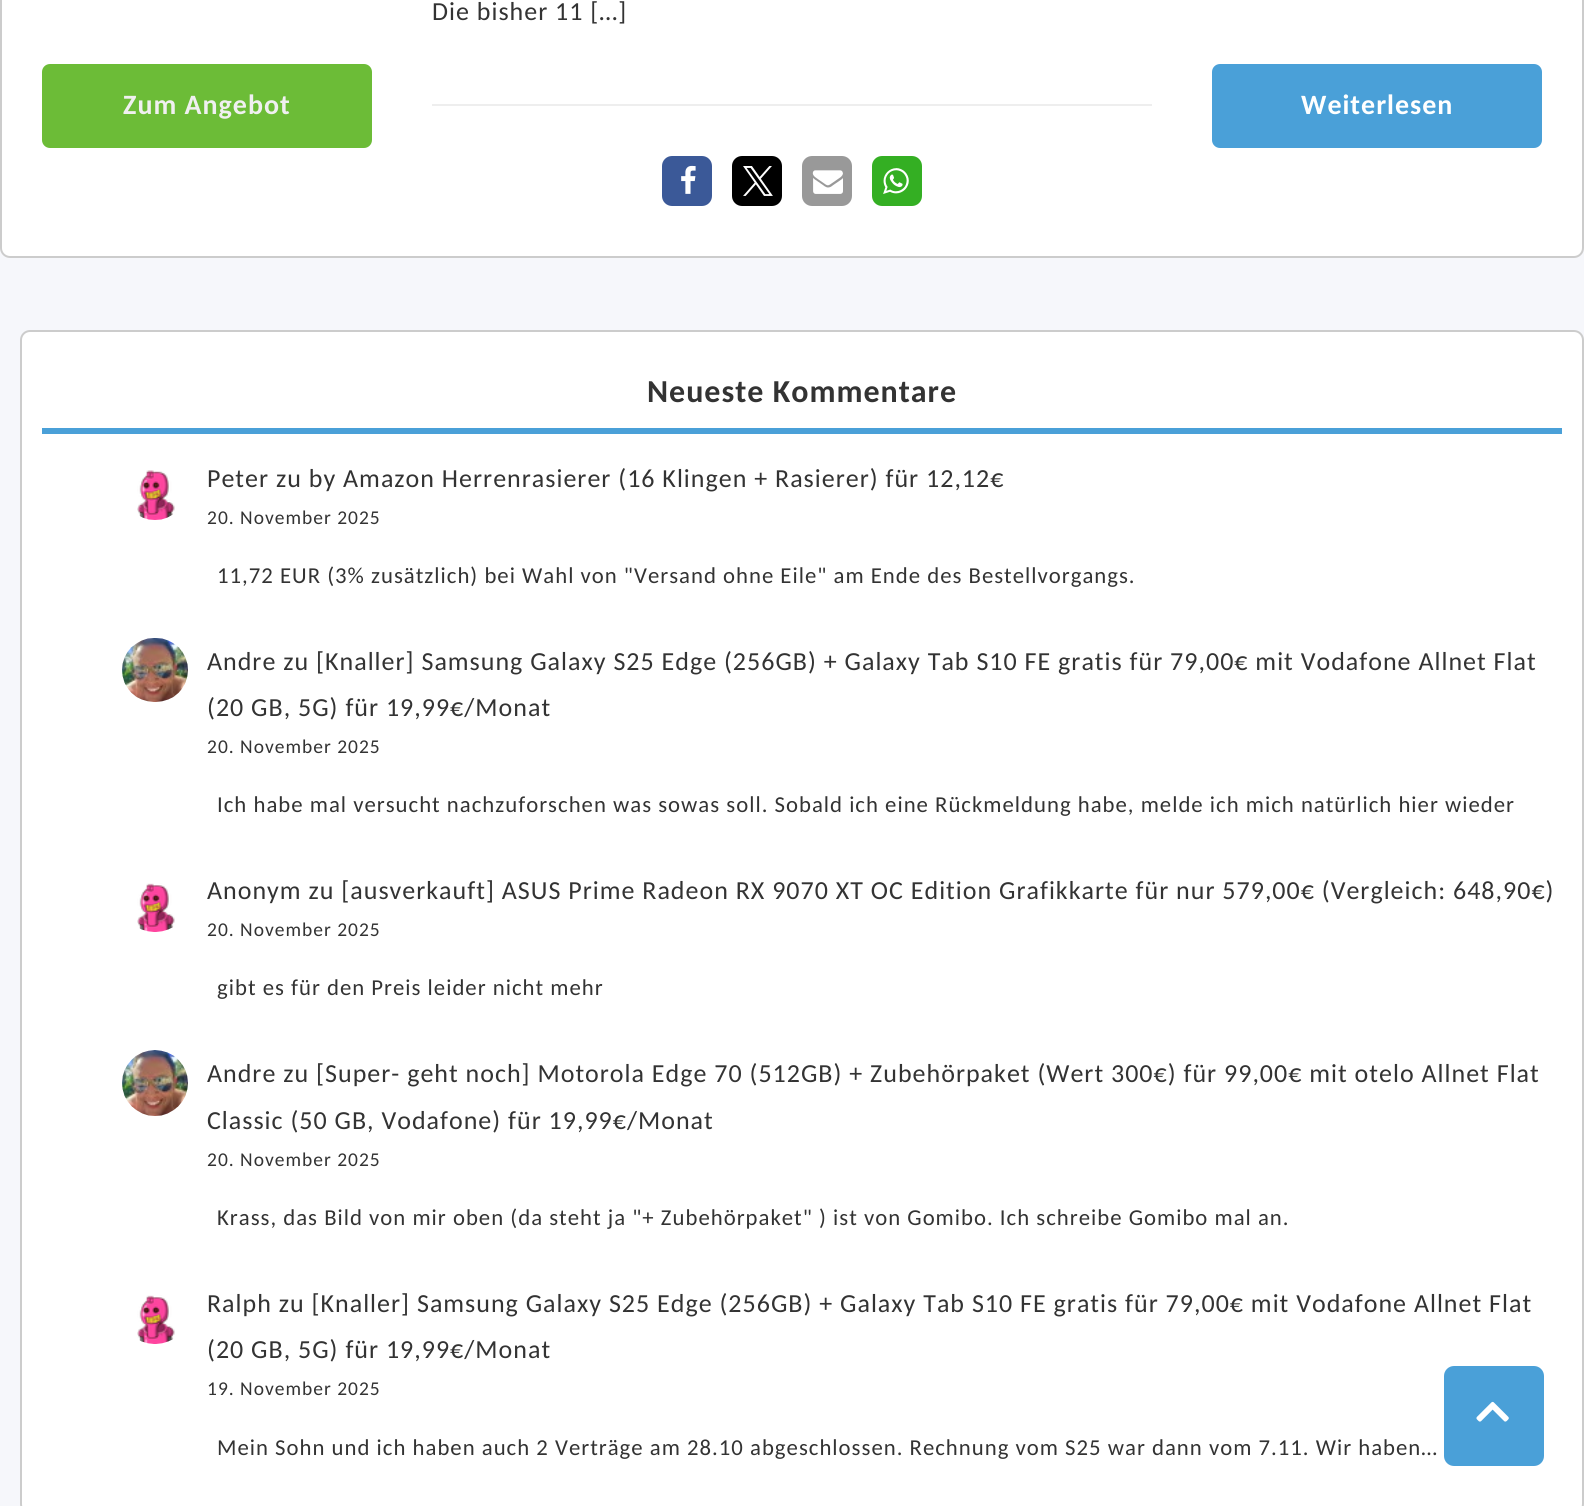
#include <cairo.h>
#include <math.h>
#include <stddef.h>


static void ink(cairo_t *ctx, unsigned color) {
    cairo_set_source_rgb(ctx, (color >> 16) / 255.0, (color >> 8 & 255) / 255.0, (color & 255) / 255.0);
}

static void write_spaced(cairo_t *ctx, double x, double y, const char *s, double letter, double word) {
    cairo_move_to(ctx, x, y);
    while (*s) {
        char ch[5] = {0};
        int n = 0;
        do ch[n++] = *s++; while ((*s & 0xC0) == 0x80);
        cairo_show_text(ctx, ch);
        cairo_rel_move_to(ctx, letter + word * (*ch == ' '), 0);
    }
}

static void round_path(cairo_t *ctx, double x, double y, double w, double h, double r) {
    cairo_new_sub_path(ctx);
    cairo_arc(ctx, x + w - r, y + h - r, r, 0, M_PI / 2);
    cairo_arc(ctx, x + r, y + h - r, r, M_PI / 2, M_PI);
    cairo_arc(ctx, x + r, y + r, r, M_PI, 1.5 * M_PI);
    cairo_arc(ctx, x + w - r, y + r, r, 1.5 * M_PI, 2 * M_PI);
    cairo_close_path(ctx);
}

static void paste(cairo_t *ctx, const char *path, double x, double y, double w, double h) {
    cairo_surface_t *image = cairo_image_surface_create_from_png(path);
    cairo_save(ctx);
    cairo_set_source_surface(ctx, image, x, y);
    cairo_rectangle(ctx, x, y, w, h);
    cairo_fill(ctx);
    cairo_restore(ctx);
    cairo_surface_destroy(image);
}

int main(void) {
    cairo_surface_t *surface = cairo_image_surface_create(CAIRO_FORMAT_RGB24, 1584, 1506);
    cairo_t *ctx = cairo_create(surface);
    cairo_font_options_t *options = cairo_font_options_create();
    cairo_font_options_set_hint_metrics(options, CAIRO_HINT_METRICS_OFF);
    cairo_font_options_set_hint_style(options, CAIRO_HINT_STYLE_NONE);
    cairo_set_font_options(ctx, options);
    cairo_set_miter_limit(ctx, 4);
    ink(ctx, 0xF6F7FB);
    cairo_paint(ctx);
    ink(ctx, 0xFFFFFF);
    round_path(ctx, 1, -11, 1582, 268, 9);
    cairo_fill_preserve(ctx);
    ink(ctx, 0xCCCCCC);
    cairo_stroke(ctx);
    cairo_select_font_face(ctx, "Carlito", CAIRO_FONT_SLANT_NORMAL, CAIRO_FONT_WEIGHT_NORMAL);
    cairo_set_font_size(ctx, 26);
    ink(ctx, 0x333333);
    write_spaced(ctx, 432, 20, "Die bisher 11 […]", 1, 0);
    ink(ctx, 0x6CBC37);
    round_path(ctx, 43, 65, 328, 82, 7);
    cairo_fill_preserve(ctx);
    cairo_stroke(ctx);
    cairo_select_font_face(ctx, "Carlito", CAIRO_FONT_SLANT_NORMAL, CAIRO_FONT_WEIGHT_BOLD);
    cairo_set_font_size(ctx, 28);
    ink(ctx, 0xF0F0F0);
    write_spaced(ctx, 123, 114, "Zum Angebot", 1, 0);
    ink(ctx, 0xEEEEEE);
    cairo_rectangle(ctx, 432, 104, 720, 2);
    cairo_fill(ctx);
    ink(ctx, 0x3B5998);
    round_path(ctx, 662, 156, 50, 50, 10);
    cairo_fill(ctx);
    paste(ctx, "media/1.png", 681, 165, 15, 29);
    ink(ctx, 0x000000);
    round_path(ctx, 732, 156, 50, 50, 10);
    cairo_fill(ctx);
    paste(ctx, "media/2.png", 743, 166, 30, 30);
    ink(ctx, 0x999999);
    round_path(ctx, 802, 156, 50, 50, 10);
    cairo_fill(ctx);
    paste(ctx, "media/3.png", 812, 170, 31, 24);
    ink(ctx, 0x34AF23);
    round_path(ctx, 872, 156, 50, 50, 10);
    cairo_fill(ctx);
    paste(ctx, "media/4.png", 883, 168, 26, 26);
    ink(ctx, 0x4AA0D8);
    round_path(ctx, 1213, 65, 328, 82, 7);
    cairo_fill_preserve(ctx);
    cairo_stroke(ctx);
    ink(ctx, 0xFFFFFF);
    write_spaced(ctx, 1301, 114, "Weiterlesen", 1, 0);
    round_path(ctx, 21, 331, 1562, 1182, 9);
    cairo_fill_preserve(ctx);
    ink(ctx, 0xCCCCCC);
    cairo_stroke(ctx);
    ink(ctx, 0x4AA0D8);
    cairo_rectangle(ctx, 42, 428, 1520, 6);
    cairo_fill(ctx);
    cairo_set_font_size(ctx, 32);
    ink(ctx, 0x333333);
    write_spaced(ctx, 647, 402, "Neueste Kommentare", 1, 0);
    paste(ctx, "media/5.png", 137, 470, 38, 50);
    cairo_select_font_face(ctx, "Carlito", CAIRO_FONT_SLANT_NORMAL, CAIRO_FONT_WEIGHT_NORMAL);
    cairo_set_font_size(ctx, 26);
    write_spaced(ctx, 207, 487, "Peter zu by Amazon Herrenrasierer (16 Klingen + Rasierer) für 12,12€", 1, 0);
    cairo_set_font_size(ctx, 19.5);
    write_spaced(ctx, 207, 524, "20. November 2025", 1, 0);
    cairo_set_font_size(ctx, 22.75);
    write_spaced(ctx, 217, 583, "11,72 EUR (3% zusätzlich) bei Wahl von \"Versand ohne Eile\" am Ende des Bestellvorgangs.", 1, 0);
    paste(ctx, "media/6.png", 122, 638, 66, 64);
    cairo_set_font_size(ctx, 26);
    write_spaced(ctx, 207, 670, "Andre zu [Knaller] Samsung Galaxy S25 Edge (256GB) + Galaxy Tab S10 FE gratis für 79,00€ mit Vodafone Allnet Flat", 1, 0);
    write_spaced(ctx, 207, 716, "(20 GB, 5G) für 19,99€/Monat", 1, 0);
    cairo_set_font_size(ctx, 19.5);
    write_spaced(ctx, 207, 753, "20. November 2025", 1, 0);
    cairo_set_font_size(ctx, 22.75);
    write_spaced(ctx, 217, 812, "Ich habe mal versucht nachzuforschen was sowas soll. Sobald ich eine Rückmeldung habe, melde ich mich natürlich hier wieder", 1, 0);
    paste(ctx, "media/7.png", 137, 883, 38, 49);
    cairo_set_font_size(ctx, 26);
    write_spaced(ctx, 207, 899, "Anonym zu [ausverkauft] ASUS Prime Radeon RX 9070 XT OC Edition Grafikkarte für nur 579,00€ (Vergleich: 648,90€)", 1, 0);
    cairo_set_font_size(ctx, 19.5);
    write_spaced(ctx, 207, 936, "20. November 2025", 1, 0);
    cairo_set_font_size(ctx, 22.75);
    write_spaced(ctx, 217, 995, "gibt es für den Preis leider nicht mehr", 1, 0);
    paste(ctx, "media/8.png", 122, 1050, 66, 66);
    cairo_set_font_size(ctx, 26);
    write_spaced(ctx, 207, 1082, "Andre zu [Super- geht noch] Motorola Edge 70 (512GB) + Zubehörpaket (Wert 300€) für 99,00€ mit otelo Allnet Flat", 1, 0);
    write_spaced(ctx, 207, 1129, "Classic (50 GB, Vodafone) für 19,99€/Monat", 1, 0);
    cairo_set_font_size(ctx, 19.5);
    write_spaced(ctx, 207, 1166, "20. November 2025", 1, 0);
    cairo_set_font_size(ctx, 22.75);
    write_spaced(ctx, 217, 1225, "Krass, das Bild von mir oben (da steht ja \"+ Zubehörpaket\" ) ist von Gomibo. Ich schreibe Gomibo mal an.", 1, 0);
    paste(ctx, "media/7.png", 137, 1295, 38, 49);
    cairo_set_font_size(ctx, 26);
    write_spaced(ctx, 207, 1312, "Ralph zu [Knaller] Samsung Galaxy S25 Edge (256GB) + Galaxy Tab S10 FE gratis für 79,00€ mit Vodafone Allnet Flat", 1, 0);
    write_spaced(ctx, 207, 1358, "(20 GB, 5G) für 19,99€/Monat", 1, 0);
    cairo_set_font_size(ctx, 19.5);
    write_spaced(ctx, 207, 1395, "19. November 2025", 1, 0);
    cairo_set_font_size(ctx, 22.75);
    write_spaced(ctx, 217, 1455, "Mein Sohn und ich haben auch 2 Verträge am 28.10 abgeschlossen. Rechnung vom S25 war dann vom 7.11. Wir haben…", 1, 0);
    ink(ctx, 0x4AA0D8);
    round_path(ctx, 1444, 1366, 100, 100, 10);
    cairo_fill(ctx);
    paste(ctx, "media/9.png", 1476, 1401, 33, 21);
    cairo_surface_write_to_png(surface, "image.png");
    cairo_font_options_destroy(options);
    cairo_destroy(ctx);
    cairo_surface_destroy(surface);
    return 0;
}
